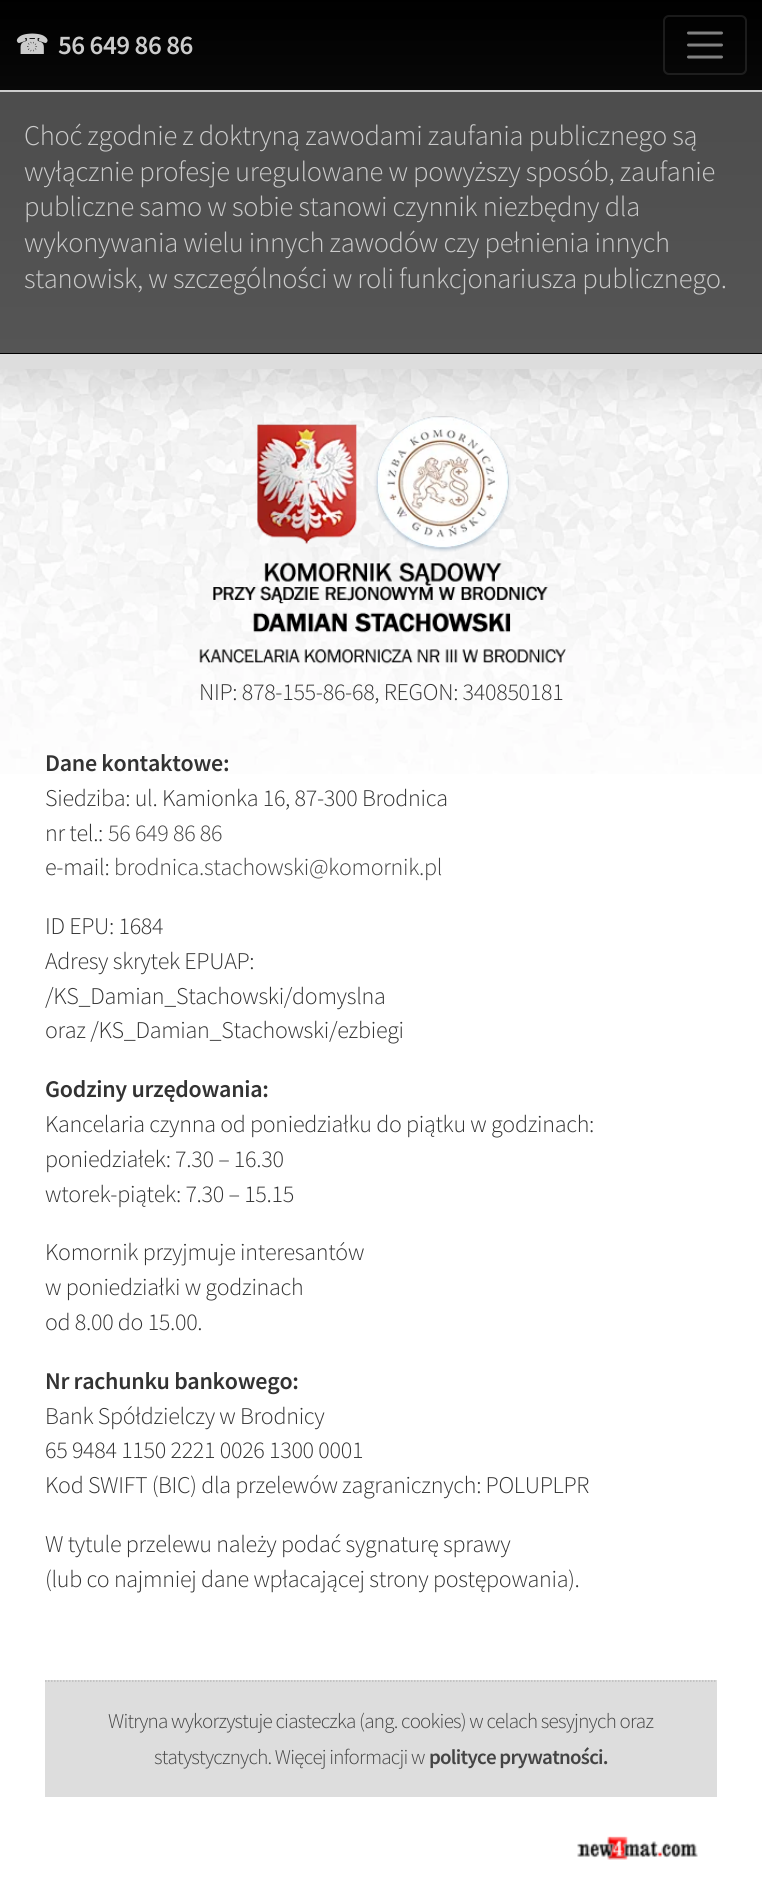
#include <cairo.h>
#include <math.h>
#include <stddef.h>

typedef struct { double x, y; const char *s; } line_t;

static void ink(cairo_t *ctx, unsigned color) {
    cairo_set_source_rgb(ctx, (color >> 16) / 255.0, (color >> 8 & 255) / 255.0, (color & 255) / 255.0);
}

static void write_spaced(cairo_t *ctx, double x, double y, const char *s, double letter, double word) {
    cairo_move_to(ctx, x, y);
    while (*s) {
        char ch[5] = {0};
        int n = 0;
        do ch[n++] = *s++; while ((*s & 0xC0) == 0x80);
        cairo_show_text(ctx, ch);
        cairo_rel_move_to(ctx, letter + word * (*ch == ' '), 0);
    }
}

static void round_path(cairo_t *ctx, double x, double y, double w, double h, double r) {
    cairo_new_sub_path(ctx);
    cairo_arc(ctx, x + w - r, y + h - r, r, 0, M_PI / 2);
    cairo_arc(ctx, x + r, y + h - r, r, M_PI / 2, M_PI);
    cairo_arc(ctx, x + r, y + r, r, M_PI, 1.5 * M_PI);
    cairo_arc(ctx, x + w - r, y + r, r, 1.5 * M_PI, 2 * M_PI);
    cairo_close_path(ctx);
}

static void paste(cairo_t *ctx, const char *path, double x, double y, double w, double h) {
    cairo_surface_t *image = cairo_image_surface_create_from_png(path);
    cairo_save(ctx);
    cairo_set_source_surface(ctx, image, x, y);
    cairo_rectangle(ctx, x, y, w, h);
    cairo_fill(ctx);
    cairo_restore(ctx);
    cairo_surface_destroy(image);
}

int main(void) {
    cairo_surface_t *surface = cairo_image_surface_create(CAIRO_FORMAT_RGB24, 762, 1891);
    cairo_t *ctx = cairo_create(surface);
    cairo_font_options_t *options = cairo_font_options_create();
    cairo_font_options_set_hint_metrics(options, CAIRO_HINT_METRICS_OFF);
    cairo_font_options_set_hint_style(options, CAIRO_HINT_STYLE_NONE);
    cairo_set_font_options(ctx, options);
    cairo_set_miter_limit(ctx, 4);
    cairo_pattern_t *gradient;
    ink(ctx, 0xFFFFFF);
    cairo_paint(ctx);
    gradient = cairo_pattern_create_linear(381, -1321, 381, 353);
    cairo_pattern_add_color_stop_rgba(gradient, 0, 0.133, 0.133, 0.133, 1);
    cairo_pattern_add_color_stop_rgba(gradient, 1, 0.333, 0.333, 0.333, 1);
    cairo_set_source(ctx, gradient);
    cairo_pattern_destroy(gradient);
    cairo_rectangle(ctx, 0, 5, 762, 348);
    cairo_fill(ctx);
    gradient = cairo_pattern_create_linear(381, 0, 381, 90);
    cairo_pattern_add_color_stop_rgba(gradient, 0, 0, 0, 0, 1);
    cairo_pattern_add_color_stop_rgba(gradient, 1, 0, 0, 0, 0.9);
    cairo_set_source(ctx, gradient);
    cairo_pattern_destroy(gradient);
    cairo_rectangle(ctx, 0, 0, 762, 90);
    cairo_fill(ctx);
    ink(ctx, 0xCCCCCC);
    cairo_rectangle(ctx, 0, 90, 762, 2);
    cairo_fill(ctx);
    cairo_select_font_face(ctx, "DejaVu Sans", CAIRO_FONT_SLANT_NORMAL, CAIRO_FONT_WEIGHT_BOLD);
    cairo_set_font_size(ctx, 27);
    write_spaced(ctx, 15, 54, "☎", -0.5, 0);
    cairo_select_font_face(ctx, "Source Sans Pro SemiBold", CAIRO_FONT_SLANT_NORMAL, CAIRO_FONT_WEIGHT_NORMAL);
    write_spaced(ctx, 58, 54, "56 649 86 86", -0.5, 0);
    round_path(ctx, 664, 16, 82, 58, 5);
    cairo_set_source_rgba(ctx, 1, 1, 1, 0.1);
    cairo_stroke(ctx);
    cairo_new_path(ctx);
    cairo_move_to(ctx, 688.5, 33);
    cairo_line_to(ctx, 721.5, 33);
    cairo_move_to(ctx, 688.5, 45);
    cairo_line_to(ctx, 721.5, 45);
    cairo_move_to(ctx, 688.5, 57);
    cairo_line_to(ctx, 721.5, 57);
    ink(ctx, 0x818181);
    cairo_set_line_width(ctx, 3);
    cairo_set_line_cap(ctx, CAIRO_LINE_CAP_ROUND);
    cairo_stroke(ctx);
    ink(ctx, 0x000000);
    cairo_rectangle(ctx, 0, 353, 762, 1);
    cairo_fill(ctx);
    cairo_select_font_face(ctx, "Source Sans Pro Light", CAIRO_FONT_SLANT_NORMAL, CAIRO_FONT_WEIGHT_NORMAL);
    cairo_set_font_size(ctx, 28.5);
    ink(ctx, 0xCCCCCC);
    {
        static const line_t items[] = {
            {24, 145, "Choć zgodnie z doktryną zawodami zaufania publicznego są"},
            {24, 181, "wyłącznie profesje uregulowane w powyższy sposób, zaufanie"},
            {24, 216, "publiczne samo w sobie stanowi czynnik niezbędny dla"},
            {24, 252, "wykonywania wielu innych zawodów czy pełnienia innych"},
            {24, 288, "stanowisk, w szczególności w roli funkcjonariusza publicznego."},
        };
        for (size_t i = 0; i < sizeof items / sizeof *items; i++) {
            write_spaced(ctx, items[i].x, items[i].y, items[i].s, -0.3, 0);
        }
    }
    paste(ctx, "media/1.png", 0, 369, 762, 405);
    ink(ctx, 0xDDDDDD);
    cairo_rectangle(ctx, 0, 354, 762, 15);
    cairo_fill(ctx);
    paste(ctx, "media/2.png", 199, 416, 367, 248);
    cairo_set_font_size(ctx, 24);
    ink(ctx, 0x333333);
    write_spaced(ctx, 199, 700, "NIP: 878-155-86-68, REGON: 340850181", -0.3, 0);
    cairo_select_font_face(ctx, "Source Sans Pro SemiBold", CAIRO_FONT_SLANT_NORMAL, CAIRO_FONT_WEIGHT_NORMAL);
    write_spaced(ctx, 45, 771, "Dane kontaktowe:", -0.3, 0);
    cairo_select_font_face(ctx, "Source Sans Pro Light", CAIRO_FONT_SLANT_NORMAL, CAIRO_FONT_WEIGHT_NORMAL);
    write_spaced(ctx, 45, 806, "Siedziba: ul. Kamionka 16, 87-300 Brodnica", -0.3, 0);
    write_spaced(ctx, 45, 841, "nr tel.:", -0.3, 0);
    ink(ctx, 0x444444);
    write_spaced(ctx, 108, 841, "56 649 86 86", -0.3, 0);
    ink(ctx, 0x333333);
    write_spaced(ctx, 45, 875, "e-mail:", -0.3, 0);
    ink(ctx, 0x444444);
    write_spaced(ctx, 114, 875, "brodnica.stachowski@komornik.pl", -0.3, 0);
    ink(ctx, 0x333333);
    {
        static const line_t items[] = {
            {45, 934, "ID EPU: 1684"},
            {45, 969, "Adresy skrytek EPUAP:"},
            {45, 1004, "/KS_Damian_Stachowski/domyslna"},
            {45, 1038, "oraz /KS_Damian_Stachowski/ezbiegi"},
        };
        for (size_t i = 0; i < sizeof items / sizeof *items; i++) {
            write_spaced(ctx, items[i].x, items[i].y, items[i].s, -0.3, 0);
        }
    }
    cairo_select_font_face(ctx, "Source Sans Pro SemiBold", CAIRO_FONT_SLANT_NORMAL, CAIRO_FONT_WEIGHT_NORMAL);
    write_spaced(ctx, 45, 1097, "Godziny urzędowania:", -0.3, 0);
    cairo_select_font_face(ctx, "Source Sans Pro Light", CAIRO_FONT_SLANT_NORMAL, CAIRO_FONT_WEIGHT_NORMAL);
    {
        static const line_t items[] = {
            {45, 1132, "Kancelaria czynna od poniedziałku do piątku w godzinach:"},
            {45, 1167, "poniedziałek: 7.30 – 16.30"},
            {45, 1202, "wtorek-piątek: 7.30 – 15.15"},
            {45, 1260, "Komornik przyjmuje interesantów"},
            {45, 1295, "w poniedziałki w godzinach"},
            {45, 1330, "od 8.00 do 15.00."},
        };
        for (size_t i = 0; i < sizeof items / sizeof *items; i++) {
            write_spaced(ctx, items[i].x, items[i].y, items[i].s, -0.3, 0);
        }
    }
    cairo_select_font_face(ctx, "Source Sans Pro SemiBold", CAIRO_FONT_SLANT_NORMAL, CAIRO_FONT_WEIGHT_NORMAL);
    write_spaced(ctx, 45, 1389, "Nr rachunku bankowego:", -0.3, 0);
    cairo_select_font_face(ctx, "Source Sans Pro Light", CAIRO_FONT_SLANT_NORMAL, CAIRO_FONT_WEIGHT_NORMAL);
    {
        static const line_t items[] = {
            {45, 1424, "Bank Spółdzielczy w Brodnicy"},
            {45, 1458, "65 9484 1150 2221 0026 1300 0001"},
            {45, 1493, "Kod SWIFT (BIC) dla przelewów zagranicznych: POLUPLPR"},
            {45, 1552, "W tytule przelewu należy podać sygnaturę sprawy"},
            {45, 1587, "(lub co najmniej dane wpłacającej strony postępowania)."},
        };
        for (size_t i = 0; i < sizeof items / sizeof *items; i++) {
            write_spaced(ctx, items[i].x, items[i].y, items[i].s, -0.3, 0);
        }
    }
    ink(ctx, 0xDDDDDD);
    cairo_rectangle(ctx, 45, 1680, 672, 117);
    cairo_fill(ctx);
    cairo_new_path(ctx);
    cairo_move_to(ctx, 45, 1681);
    cairo_line_to(ctx, 717, 1681);
    ink(ctx, 0xBBBBBB);
    cairo_set_line_width(ctx, 1.5);
    cairo_set_line_cap(ctx, CAIRO_LINE_CAP_BUTT);
    cairo_set_dash(ctx, (double[]){1.5, 1.5}, 2, 0);
    cairo_stroke(ctx);
    cairo_set_font_size(ctx, 21);
    ink(ctx, 0x444444);
    write_spaced(ctx, 108, 1728, "Witryna wykorzystuje ciasteczka (ang. cookies) w celach sesyjnych oraz", -0.75, 0);
    write_spaced(ctx, 154, 1764, "statystycznych. Więcej informacji w", -0.75, 0);
    cairo_select_font_face(ctx, "Source Sans Pro SemiBold", CAIRO_FONT_SLANT_NORMAL, CAIRO_FONT_WEIGHT_NORMAL);
    write_spaced(ctx, 429, 1764, "polityce prywatności.", -0.75, 0);
    paste(ctx, "media/3.png", 577, 1836, 121, 24);
    cairo_surface_write_to_png(surface, "image.png");
    cairo_font_options_destroy(options);
    cairo_destroy(ctx);
    cairo_surface_destroy(surface);
    return 0;
}
